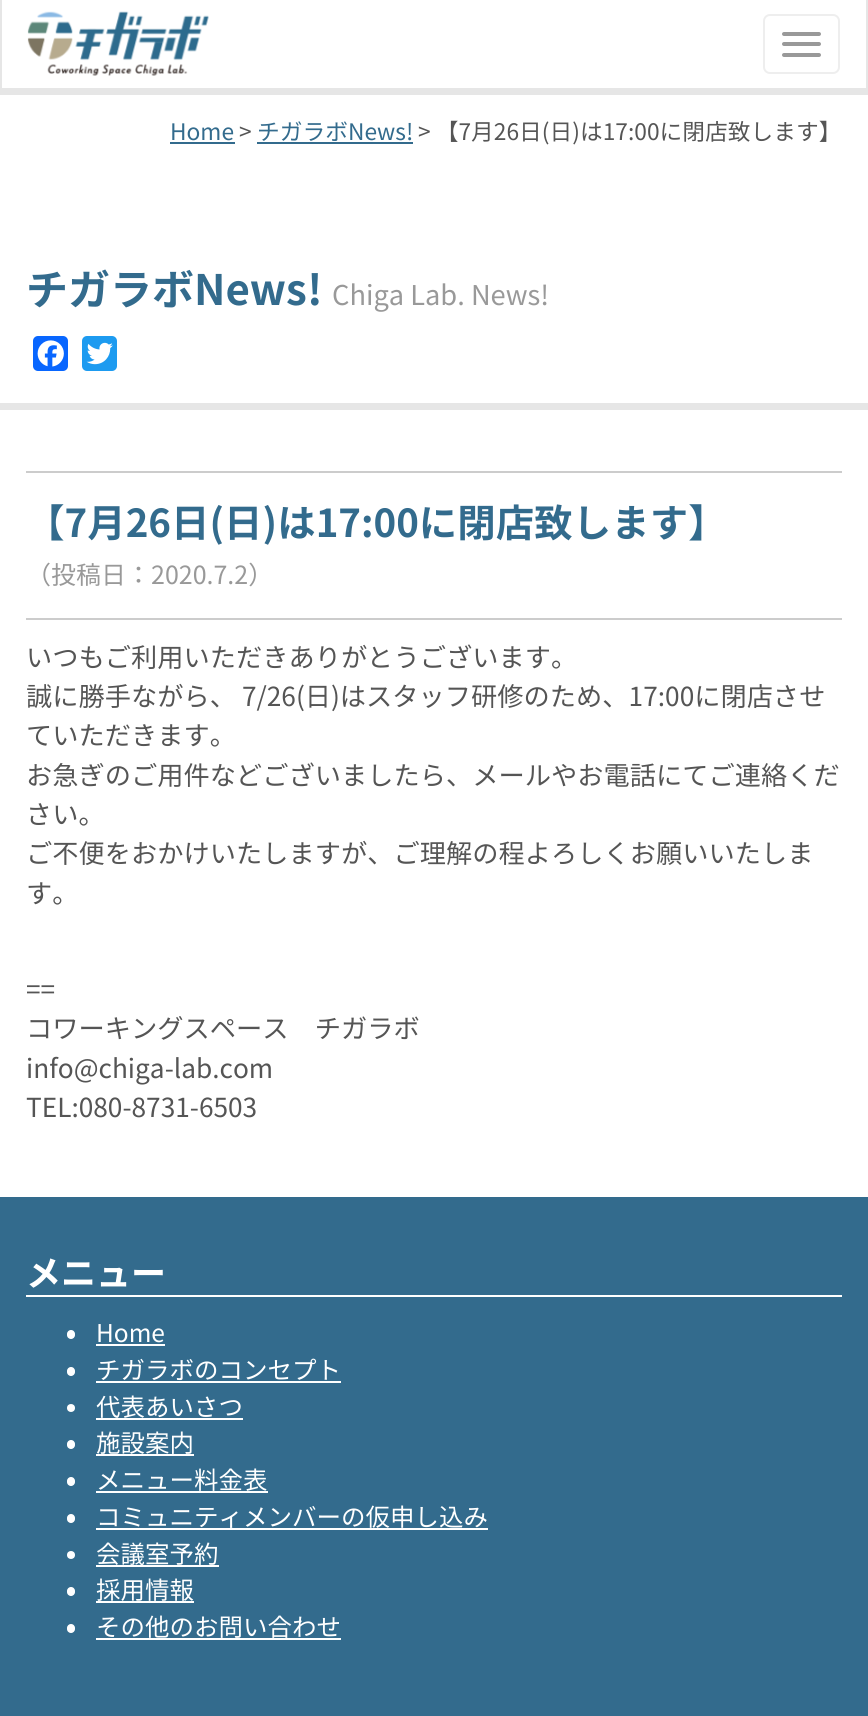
#include <cairo.h>
#include <math.h>
#include <stddef.h>

typedef struct { double x, y; const char *s; } line_t;
typedef struct { double x, y, w, h; unsigned color; } box_t;

static void ink(cairo_t *ctx, unsigned color) {
    cairo_set_source_rgb(ctx, (color >> 16) / 255.0, (color >> 8 & 255) / 255.0, (color & 255) / 255.0);
}

static void round_path(cairo_t *ctx, double x, double y, double w, double h, double r) {
    cairo_new_sub_path(ctx);
    cairo_arc(ctx, x + w - r, y + h - r, r, 0, M_PI / 2);
    cairo_arc(ctx, x + r, y + h - r, r, M_PI / 2, M_PI);
    cairo_arc(ctx, x + r, y + r, r, M_PI, 1.5 * M_PI);
    cairo_arc(ctx, x + w - r, y + r, r, 1.5 * M_PI, 2 * M_PI);
    cairo_close_path(ctx);
}

static void paste(cairo_t *ctx, const char *path, double x, double y, double w, double h) {
    cairo_surface_t *image = cairo_image_surface_create_from_png(path);
    cairo_save(ctx);
    cairo_set_source_surface(ctx, image, x, y);
    cairo_rectangle(ctx, x, y, w, h);
    cairo_fill(ctx);
    cairo_restore(ctx);
    cairo_surface_destroy(image);
}

int main(void) {
    cairo_surface_t *surface = cairo_image_surface_create(CAIRO_FORMAT_RGB24, 868, 1716);
    cairo_t *ctx = cairo_create(surface);
    cairo_font_options_t *options = cairo_font_options_create();
    cairo_font_options_set_hint_metrics(options, CAIRO_HINT_METRICS_OFF);
    cairo_font_options_set_hint_style(options, CAIRO_HINT_STYLE_NONE);
    cairo_set_font_options(ctx, options);
    cairo_set_miter_limit(ctx, 4);
    ink(ctx, 0xFFFFFF);
    cairo_paint(ctx);
    {
        static const box_t items[] = {
            {866, 0, 2, 95, 0xE6E6E6},
            {0, 88, 868, 7, 0xE6E6E6},
            {0, 0, 2, 95, 0xE6E6E6},
        };
        for (size_t i = 0; i < sizeof items / sizeof *items; i++) {
            ink(ctx, items[i].color);
            cairo_rectangle(ctx, items[i].x, items[i].y, items[i].w, items[i].h);
            cairo_fill(ctx);
        }
    }
    paste(ctx, "media/1.png", 27, 11, 182, 65);
    round_path(ctx, 764, 15, 75, 58, 6);
    ink(ctx, 0xEEEEEE);
    cairo_stroke(ctx);
    ink(ctx, 0x999999);
    round_path(ctx, 782, 32, 39, 4, 2);
    cairo_fill(ctx);
    round_path(ctx, 782, 42, 39, 4, 2);
    cairo_fill(ctx);
    round_path(ctx, 782, 53, 39, 4, 2);
    cairo_fill(ctx);
    cairo_select_font_face(ctx, "Noto Sans JP", CAIRO_FONT_SLANT_NORMAL, CAIRO_FONT_WEIGHT_NORMAL);
    cairo_set_font_size(ctx, 22.75);
    ink(ctx, 0x336B8D);
    cairo_move_to(ctx, 170, 140);
    cairo_show_text(ctx, "Home");
    cairo_rectangle(ctx, 170, 142, 65, 2);
    cairo_fill(ctx);
    ink(ctx, 0x555555);
    cairo_move_to(ctx, 239, 140);
    cairo_show_text(ctx, ">");
    ink(ctx, 0x336B8D);
    cairo_move_to(ctx, 257, 140);
    cairo_show_text(ctx, "チガラボNews!");
    cairo_rectangle(ctx, 257, 142, 156, 2);
    cairo_fill(ctx);
    ink(ctx, 0x555555);
    cairo_move_to(ctx, 418, 140);
    cairo_show_text(ctx, "> 【7月26日(日)は17:00に閉店致します】");
    cairo_select_font_face(ctx, "Noto Sans JP", CAIRO_FONT_SLANT_NORMAL, CAIRO_FONT_WEIGHT_BOLD);
    cairo_set_font_size(ctx, 42);
    ink(ctx, 0x336B8D);
    cairo_move_to(ctx, 26, 305);
    cairo_show_text(ctx, "チガラボNews!");
    cairo_select_font_face(ctx, "Noto Sans JP", CAIRO_FONT_SLANT_NORMAL, CAIRO_FONT_WEIGHT_NORMAL);
    cairo_set_font_size(ctx, 27.25);
    ink(ctx, 0x999999);
    cairo_move_to(ctx, 332, 305);
    cairo_show_text(ctx, "Chiga Lab. News!");
    ink(ctx, 0x0866FF);
    round_path(ctx, 33, 336, 35, 35, 5);
    cairo_fill(ctx);
    paste(ctx, "media/2.png", 37, 340, 27, 27);
    ink(ctx, 0x1D9BF0);
    round_path(ctx, 82, 336, 35, 35, 5);
    cairo_fill(ctx);
    paste(ctx, "media/3.png", 86, 342, 27, 23);
    {
        static const box_t items[] = {
            {0, 403, 868, 7, 0xE6E6E6},
            {26, 471, 816, 2, 0xCCCCCC},
            {26, 618, 816, 2, 0xCCCCCC},
        };
        for (size_t i = 0; i < sizeof items / sizeof *items; i++) {
            ink(ctx, items[i].color);
            cairo_rectangle(ctx, items[i].x, items[i].y, items[i].w, items[i].h);
            cairo_fill(ctx);
        }
    }
    cairo_select_font_face(ctx, "Noto Sans JP", CAIRO_FONT_SLANT_NORMAL, CAIRO_FONT_WEIGHT_BOLD);
    cairo_set_font_size(ctx, 38.5);
    ink(ctx, 0x336B8D);
    cairo_move_to(ctx, 26, 537);
    cairo_show_text(ctx, "【7月26日(日)は17:00に閉店致します】");
    cairo_select_font_face(ctx, "Noto Sans JP", CAIRO_FONT_SLANT_NORMAL, CAIRO_FONT_WEIGHT_NORMAL);
    cairo_set_font_size(ctx, 25);
    ink(ctx, 0x999999);
    cairo_move_to(ctx, 26, 584);
    cairo_show_text(ctx, "（投稿日：2020.7.2）");
    cairo_set_font_size(ctx, 26.25);
    ink(ctx, 0x555555);
    {
        static const line_t items[] = {
            {26, 667, "いつもご利用いただきありがとうございます。"},
            {26, 706, "誠に勝手ながら、 7/26(日)はスタッフ研修のため、17:00に閉店させ"},
            {26, 745, "ていただきます。"},
            {26, 785, "お急ぎのご用件などございましたら、メールやお電話にてご連絡くだ"},
            {26, 824, "さい。"},
            {26, 863, "ご不便をおかけいたしますが、ご理解の程よろしくお願いいたしま"},
            {26, 903, "す。"},
            {26, 999, "=="},
            {26, 1038, "コワーキングスペース　チガラボ"},
            {26, 1078, "info@chiga-lab.com"},
            {26, 1117, "TEL:080-8731-6503"},
        };
        for (size_t i = 0; i < sizeof items / sizeof *items; i++) {
            cairo_move_to(ctx, items[i].x, items[i].y);
            cairo_show_text(ctx, items[i].s);
        }
    }
    ink(ctx, 0x336B8D);
    cairo_rectangle(ctx, 0, 1197, 868, 519);
    cairo_fill(ctx);
    ink(ctx, 0xFFFFFF);
    cairo_rectangle(ctx, 26, 1295, 816, 2);
    cairo_fill(ctx);
    cairo_select_font_face(ctx, "Noto Sans JP", CAIRO_FONT_SLANT_NORMAL, CAIRO_FONT_WEIGHT_BOLD);
    cairo_set_font_size(ctx, 35);
    cairo_move_to(ctx, 26, 1286);
    cairo_show_text(ctx, "メニュー");
    round_path(ctx, 67, 1330, 8, 9, 4);
    cairo_fill(ctx);
    cairo_select_font_face(ctx, "Noto Sans JP", CAIRO_FONT_SLANT_NORMAL, CAIRO_FONT_WEIGHT_NORMAL);
    cairo_set_font_size(ctx, 24.5);
    cairo_move_to(ctx, 96, 1342);
    cairo_show_text(ctx, "Home");
    cairo_rectangle(ctx, 96, 1344, 69, 2);
    cairo_fill(ctx);
    round_path(ctx, 67, 1367, 8, 9, 4);
    cairo_fill(ctx);
    cairo_move_to(ctx, 96, 1379);
    cairo_show_text(ctx, "チガラボのコンセプト");
    cairo_rectangle(ctx, 96, 1381, 245, 2);
    cairo_fill(ctx);
    cairo_arc(ctx, 71, 1408, 4, 0, 2 * M_PI);
    cairo_fill(ctx);
    cairo_move_to(ctx, 96, 1416);
    cairo_show_text(ctx, "代表あいさつ");
    cairo_rectangle(ctx, 96, 1418, 147, 2);
    cairo_fill(ctx);
    round_path(ctx, 67, 1440, 8, 9, 4);
    cairo_fill(ctx);
    cairo_move_to(ctx, 96, 1452);
    cairo_show_text(ctx, "施設案内");
    cairo_rectangle(ctx, 96, 1454, 98, 2);
    cairo_fill(ctx);
    round_path(ctx, 67, 1477, 8, 9, 4);
    cairo_fill(ctx);
    cairo_move_to(ctx, 96, 1489);
    cairo_show_text(ctx, "メニュー料金表");
    cairo_rectangle(ctx, 96, 1491, 172, 2);
    cairo_fill(ctx);
    round_path(ctx, 67, 1514, 8, 9, 4);
    cairo_fill(ctx);
    cairo_move_to(ctx, 96, 1526);
    cairo_show_text(ctx, "コミュニティメンバーの仮申し込み");
    cairo_rectangle(ctx, 96, 1528, 392, 2);
    cairo_fill(ctx);
    cairo_arc(ctx, 71, 1555, 4, 0, 2 * M_PI);
    cairo_fill(ctx);
    cairo_rectangle(ctx, 96, 1565, 123, 2);
    cairo_fill(ctx);
    cairo_move_to(ctx, 96, 1563);
    cairo_show_text(ctx, "会議室予約");
    round_path(ctx, 67, 1587, 8, 9, 4);
    cairo_fill(ctx);
    cairo_move_to(ctx, 96, 1599);
    cairo_show_text(ctx, "採用情報");
    cairo_rectangle(ctx, 96, 1601, 98, 2);
    cairo_fill(ctx);
    round_path(ctx, 67, 1624, 8, 9, 4);
    cairo_fill(ctx);
    cairo_move_to(ctx, 96, 1636);
    cairo_show_text(ctx, "その他のお問い合わせ");
    cairo_rectangle(ctx, 96, 1638, 245, 2);
    cairo_fill(ctx);
    cairo_surface_write_to_png(surface, "image.png");
    cairo_font_options_destroy(options);
    cairo_destroy(ctx);
    cairo_surface_destroy(surface);
    return 0;
}
